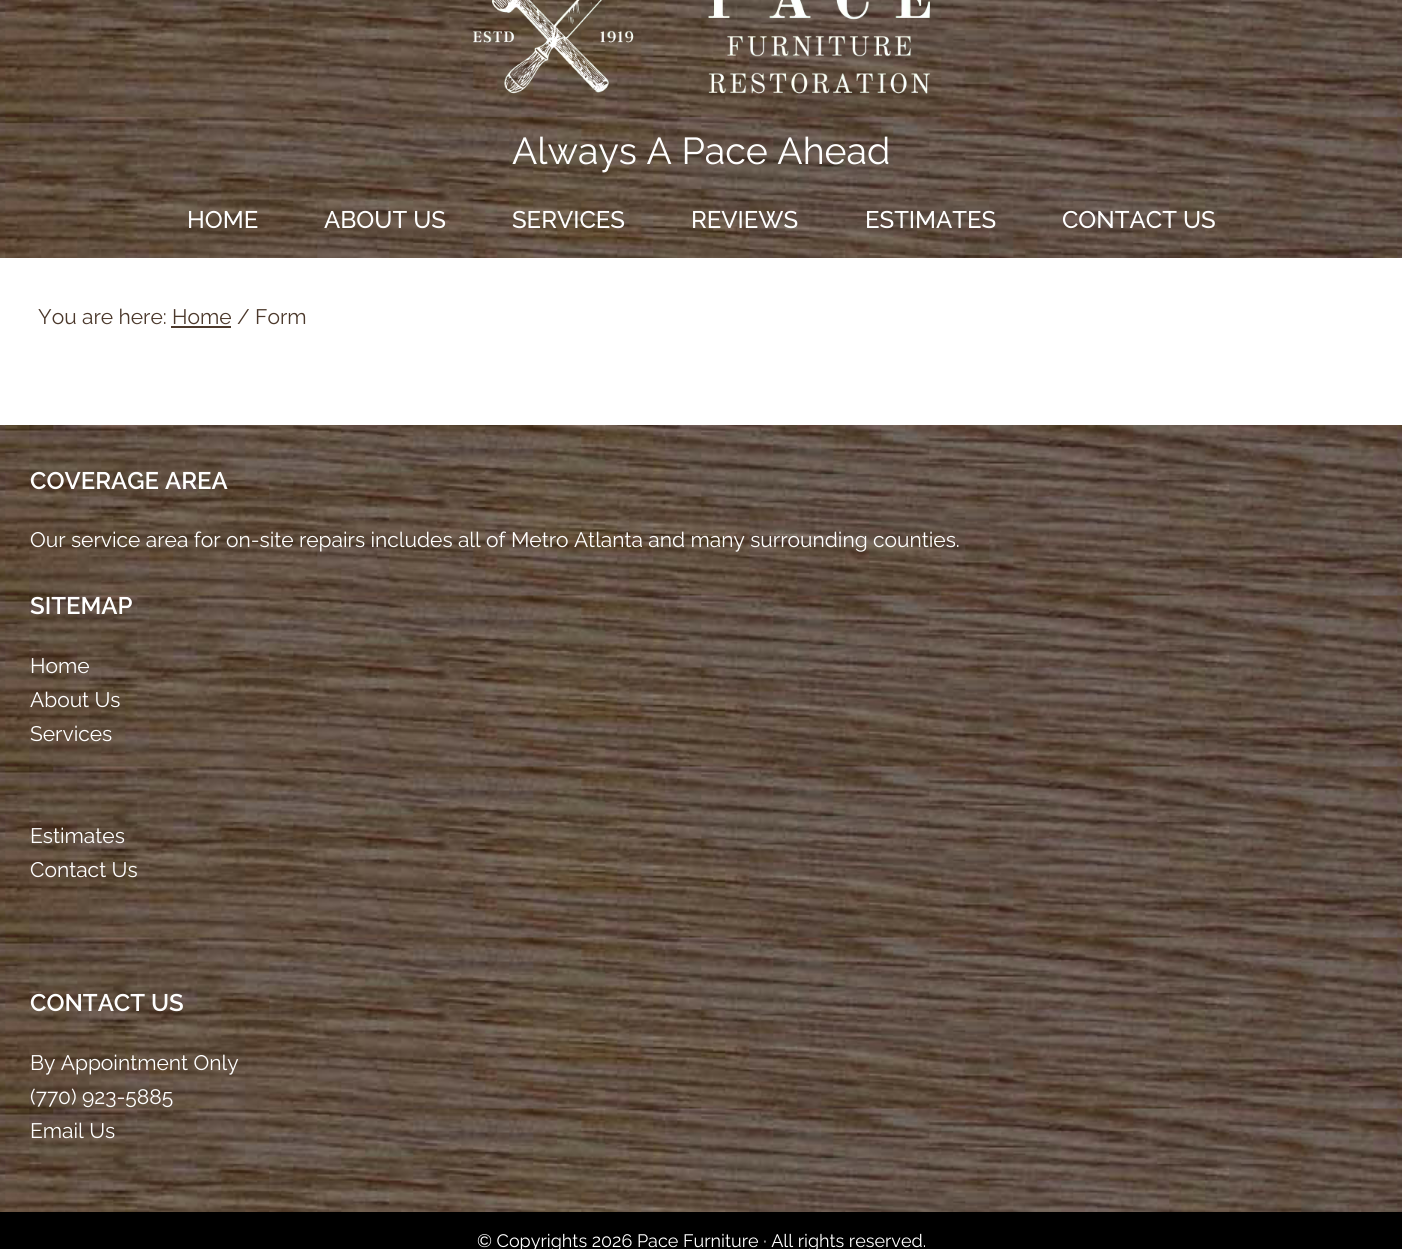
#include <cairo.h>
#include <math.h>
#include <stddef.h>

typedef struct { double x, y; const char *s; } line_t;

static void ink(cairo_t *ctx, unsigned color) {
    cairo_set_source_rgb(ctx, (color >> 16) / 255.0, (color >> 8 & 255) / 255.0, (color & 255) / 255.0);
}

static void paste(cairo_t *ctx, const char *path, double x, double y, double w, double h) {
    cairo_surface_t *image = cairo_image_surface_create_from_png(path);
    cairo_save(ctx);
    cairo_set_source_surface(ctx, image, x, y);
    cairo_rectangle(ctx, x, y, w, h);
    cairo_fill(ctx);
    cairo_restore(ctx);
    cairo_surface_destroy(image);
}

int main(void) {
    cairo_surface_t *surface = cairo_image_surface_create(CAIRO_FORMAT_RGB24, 1402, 1249);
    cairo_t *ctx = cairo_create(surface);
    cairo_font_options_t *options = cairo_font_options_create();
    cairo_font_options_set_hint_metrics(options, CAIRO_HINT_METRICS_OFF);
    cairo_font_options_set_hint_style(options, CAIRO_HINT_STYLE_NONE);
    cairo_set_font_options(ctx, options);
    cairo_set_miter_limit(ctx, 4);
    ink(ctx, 0xFFFFFF);
    cairo_paint(ctx);
    paste(ctx, "media/1.png", 0, 0, 1402, 258);
    paste(ctx, "media/2.png", 473, 0, 457, 94);
    cairo_select_font_face(ctx, "Raleway", CAIRO_FONT_SLANT_NORMAL, CAIRO_FONT_WEIGHT_NORMAL);
    cairo_set_font_size(ctx, 37.5);
    ink(ctx, 0xFFFFFF);
    cairo_move_to(ctx, 512, 164);
    cairo_show_text(ctx, "Always A Pace Ahead");
    cairo_select_font_face(ctx, "Raleway Medium", CAIRO_FONT_SLANT_NORMAL, CAIRO_FONT_WEIGHT_NORMAL);
    cairo_set_font_size(ctx, 24);
    {
        static const line_t items[] = {
            {187, 228, "HOME"},
            {324, 228, "ABOUT US"},
            {512, 228, "SERVICES"},
            {691, 228, "REVIEWS"},
            {865, 228, "ESTIMATES"},
            {1062, 228, "CONTACT US"},
        };
        for (size_t i = 0; i < sizeof items / sizeof *items; i++) {
            cairo_move_to(ctx, items[i].x, items[i].y);
            cairo_show_text(ctx, items[i].s);
        }
    }
    cairo_select_font_face(ctx, "Raleway", CAIRO_FONT_SLANT_NORMAL, CAIRO_FONT_WEIGHT_NORMAL);
    cairo_set_font_size(ctx, 21);
    ink(ctx, 0x4C392C);
    cairo_move_to(ctx, 38, 324);
    cairo_show_text(ctx, "You are here: Home / Form");
    cairo_rectangle(ctx, 171, 326, 60, 2);
    cairo_fill(ctx);
    paste(ctx, "media/3.png", 0, 425, 1402, 787);
    cairo_select_font_face(ctx, "Raleway SemiBold", CAIRO_FONT_SLANT_NORMAL, CAIRO_FONT_WEIGHT_NORMAL);
    cairo_set_font_size(ctx, 24);
    ink(ctx, 0xFFFFFF);
    cairo_move_to(ctx, 30, 489);
    cairo_show_text(ctx, "COVERAGE AREA");
    cairo_select_font_face(ctx, "Raleway", CAIRO_FONT_SLANT_NORMAL, CAIRO_FONT_WEIGHT_NORMAL);
    cairo_set_font_size(ctx, 21);
    cairo_move_to(ctx, 30, 547);
    cairo_show_text(ctx, "Our service area for on-site repairs includes all of Metro Atlanta and many surrounding counties.");
    cairo_select_font_face(ctx, "Raleway SemiBold", CAIRO_FONT_SLANT_NORMAL, CAIRO_FONT_WEIGHT_NORMAL);
    cairo_set_font_size(ctx, 24);
    cairo_move_to(ctx, 30, 614);
    cairo_show_text(ctx, "SITEMAP");
    cairo_select_font_face(ctx, "Raleway", CAIRO_FONT_SLANT_NORMAL, CAIRO_FONT_WEIGHT_NORMAL);
    cairo_set_font_size(ctx, 21);
    {
        static const line_t items[] = {
            {30, 673, "Home"},
            {30, 707, "About Us"},
            {30, 741, "Services"},
            {30, 843, "Estimates"},
            {30, 877, "Contact Us"},
        };
        for (size_t i = 0; i < sizeof items / sizeof *items; i++) {
            cairo_move_to(ctx, items[i].x, items[i].y);
            cairo_show_text(ctx, items[i].s);
        }
    }
    cairo_select_font_face(ctx, "Raleway SemiBold", CAIRO_FONT_SLANT_NORMAL, CAIRO_FONT_WEIGHT_NORMAL);
    cairo_set_font_size(ctx, 24);
    cairo_move_to(ctx, 30, 1011);
    cairo_show_text(ctx, "CONTACT US");
    cairo_select_font_face(ctx, "Raleway", CAIRO_FONT_SLANT_NORMAL, CAIRO_FONT_WEIGHT_NORMAL);
    cairo_set_font_size(ctx, 21);
    {
        static const line_t items[] = {
            {30, 1070, "By Appointment Only"},
            {30, 1104, "(770) 923-5885"},
            {30, 1138, "Email Us"},
        };
        for (size_t i = 0; i < sizeof items / sizeof *items; i++) {
            cairo_move_to(ctx, items[i].x, items[i].y);
            cairo_show_text(ctx, items[i].s);
        }
    }
    ink(ctx, 0x000000);
    cairo_rectangle(ctx, 0, 1212, 1402, 37);
    cairo_fill(ctx);
    cairo_set_font_size(ctx, 18);
    ink(ctx, 0xFFFFFF);
    cairo_move_to(ctx, 477, 1247);
    cairo_show_text(ctx, "© Copyrights 2026 Pace Furniture · All rights reserved.");
    cairo_surface_write_to_png(surface, "image.png");
    cairo_font_options_destroy(options);
    cairo_destroy(ctx);
    cairo_surface_destroy(surface);
    return 0;
}
